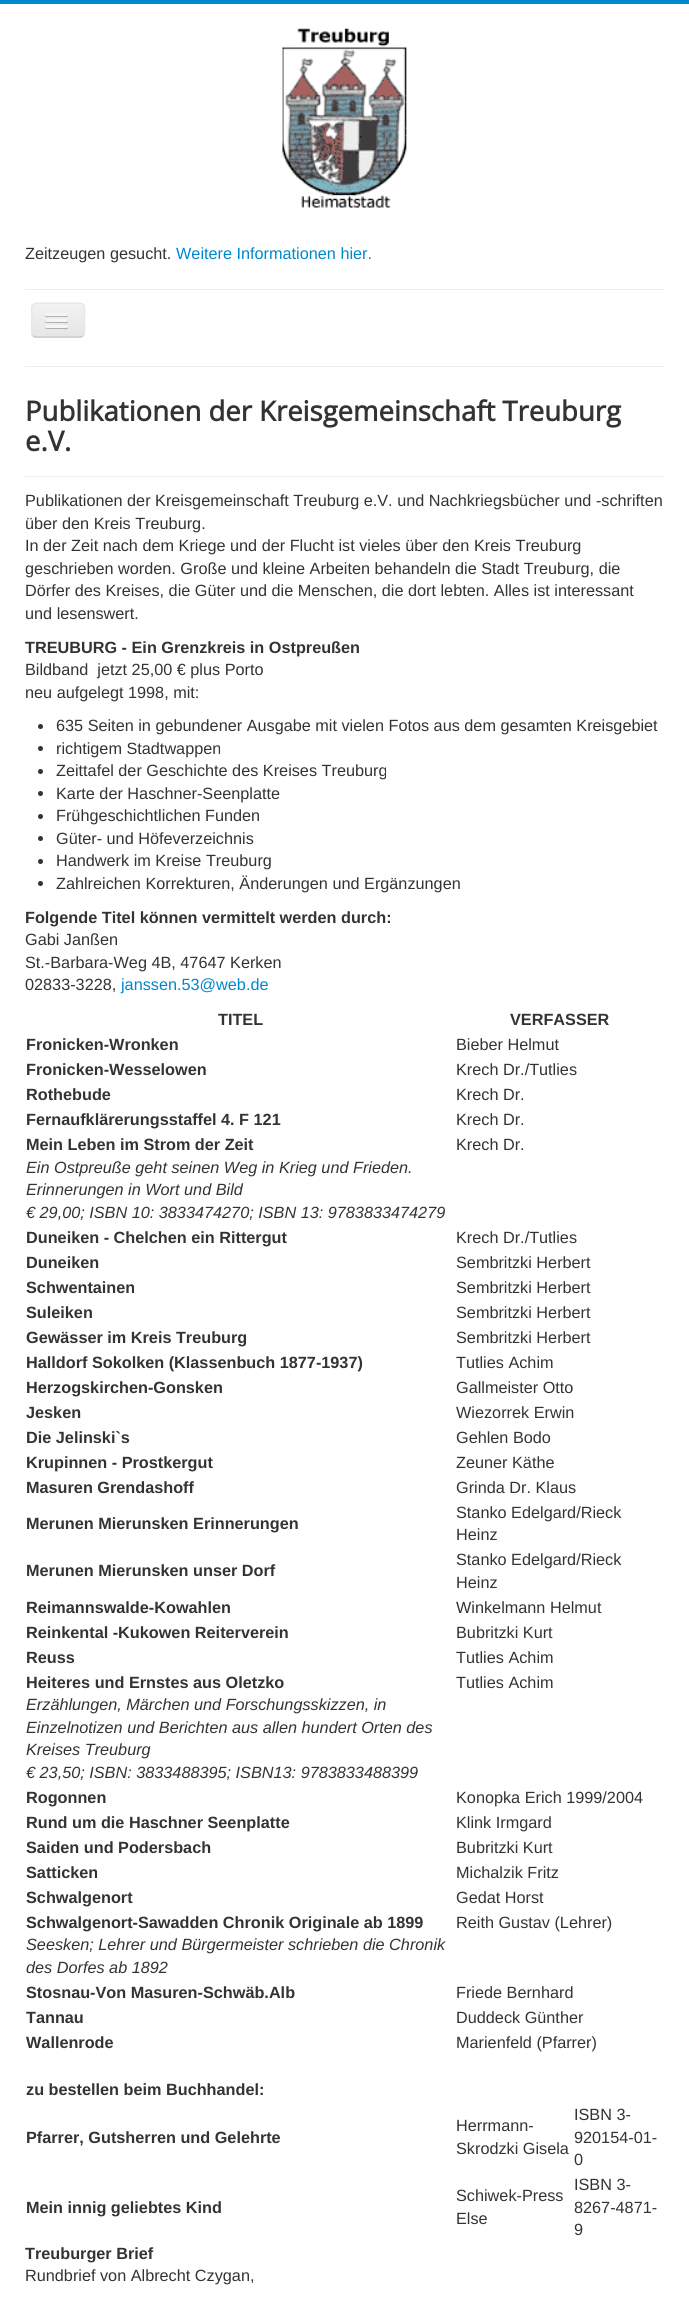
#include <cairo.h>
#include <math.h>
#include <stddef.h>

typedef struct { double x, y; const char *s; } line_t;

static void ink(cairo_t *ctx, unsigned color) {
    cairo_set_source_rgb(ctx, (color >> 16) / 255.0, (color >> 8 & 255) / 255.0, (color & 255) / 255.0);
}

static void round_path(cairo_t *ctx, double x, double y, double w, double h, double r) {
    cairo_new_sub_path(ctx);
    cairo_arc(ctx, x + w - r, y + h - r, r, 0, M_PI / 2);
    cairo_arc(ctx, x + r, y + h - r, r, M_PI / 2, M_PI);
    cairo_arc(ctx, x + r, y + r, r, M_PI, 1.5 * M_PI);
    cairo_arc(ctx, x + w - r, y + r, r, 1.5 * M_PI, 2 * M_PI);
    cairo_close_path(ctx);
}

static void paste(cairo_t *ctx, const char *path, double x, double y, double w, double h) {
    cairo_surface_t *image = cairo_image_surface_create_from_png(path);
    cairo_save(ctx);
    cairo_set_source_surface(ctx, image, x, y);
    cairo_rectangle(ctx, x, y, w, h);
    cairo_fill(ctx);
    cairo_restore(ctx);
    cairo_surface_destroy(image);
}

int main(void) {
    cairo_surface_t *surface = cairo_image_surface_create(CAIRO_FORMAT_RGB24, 689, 2298);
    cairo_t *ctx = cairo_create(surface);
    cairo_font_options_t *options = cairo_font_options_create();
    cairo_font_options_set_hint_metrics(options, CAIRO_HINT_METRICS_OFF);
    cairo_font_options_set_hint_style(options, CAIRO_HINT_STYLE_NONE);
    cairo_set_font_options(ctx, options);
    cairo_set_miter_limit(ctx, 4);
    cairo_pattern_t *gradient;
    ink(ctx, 0xFFFFFF);
    cairo_paint(ctx);
    ink(ctx, 0x0088CC);
    cairo_rectangle(ctx, 0, 0, 689, 4);
    cairo_fill(ctx);
    paste(ctx, "media/1.png", 282, 28, 125, 180);
    cairo_select_font_face(ctx, "Liberation Sans", CAIRO_FONT_SLANT_NORMAL, CAIRO_FONT_WEIGHT_NORMAL);
    cairo_set_font_size(ctx, 16.25);
    ink(ctx, 0x333333);
    cairo_move_to(ctx, 25, 259);
    cairo_show_text(ctx, "Zeitzeugen gesucht.");
    ink(ctx, 0x0088CC);
    cairo_move_to(ctx, 176, 259);
    cairo_show_text(ctx, "Weitere Informationen hier.");
    ink(ctx, 0xECECEC);
    cairo_rectangle(ctx, 25, 289, 640, 1);
    cairo_fill(ctx);
    cairo_rectangle(ctx, 25, 366, 640, 1);
    cairo_fill(ctx);
    ink(ctx, 0xEDEDED);
    round_path(ctx, 31, 303, 54, 35, 5);
    cairo_fill(ctx);
    cairo_save(ctx);
    round_path(ctx, 31, 303, 54, 35, 5);
    cairo_clip(ctx);
    gradient = cairo_pattern_create_linear(58, 304, 58, 336);
    cairo_pattern_add_color_stop_rgba(gradient, 0, 0.949, 0.949, 0.949, 1);
    cairo_pattern_add_color_stop_rgba(gradient, 1, 0.902, 0.902, 0.902, 1);
    cairo_set_source(ctx, gradient);
    cairo_pattern_destroy(gradient);
    cairo_rectangle(ctx, 31, 304, 54, 32);
    cairo_fill(ctx);
    cairo_restore(ctx);
    cairo_new_path(ctx);
    cairo_move_to(ctx, 83, 335.5);
    cairo_curve_to(ctx, 82.5, 336.5, 81, 337, 80, 337);
    cairo_line_to(ctx, 36, 337);
    cairo_curve_to(ctx, 35, 337, 34, 336.5, 33, 335.5);
    ink(ctx, 0xBFBFBF);
    cairo_set_line_width(ctx, 1.2);
    cairo_stroke(ctx);
    cairo_new_path(ctx);
    cairo_move_to(ctx, 33, 335.5);
    cairo_curve_to(ctx, 30.5, 333, 32, 323, 32, 320);
    cairo_curve_to(ctx, 32, 304, 28.5, 303, 43.5, 303);
    cairo_line_to(ctx, 72.5, 303);
    cairo_curve_to(ctx, 87.5, 303, 84.5, 304, 84.5, 320);
    cairo_curve_to(ctx, 84.5, 323, 85.5, 333, 83, 335.5);
    ink(ctx, 0xE6E6E6);
    cairo_stroke(ctx);
    ink(ctx, 0xB2B2B2);
    cairo_new_path(ctx);
    cairo_move_to(ctx, 45.5, 314.5);
    cairo_line_to(ctx, 45, 316);
    cairo_curve_to(ctx, 45.5, 318, 49, 317, 50, 317);
    cairo_line_to(ctx, 63, 317);
    cairo_curve_to(ctx, 64.5, 317, 68, 318, 68, 315.5);
    cairo_line_to(ctx, 67.5, 314.5);
    cairo_line_to(ctx, 66.5, 315);
    cairo_curve_to(ctx, 64.5, 315.5, 46, 315.5, 45.5, 314.5);
    cairo_close_path(ctx);
    cairo_fill(ctx);
    ink(ctx, 0xF5F5F5);
    round_path(ctx, 45, 313, 23, 3, 1.5);
    cairo_fill(ctx);
    ink(ctx, 0xB0B0B0);
    cairo_new_path(ctx);
    cairo_move_to(ctx, 45, 320.5);
    cairo_curve_to(ctx, 43.5, 323.5, 49.5, 323, 50, 323);
    cairo_line_to(ctx, 63, 323);
    cairo_curve_to(ctx, 64, 323, 67.5, 324, 68, 322);
    cairo_curve_to(ctx, 68, 321.5, 68, 320.5, 67.5, 320.5);
    cairo_line_to(ctx, 66.5, 321);
    cairo_line_to(ctx, 46, 321);
    cairo_close_path(ctx);
    cairo_fill(ctx);
    ink(ctx, 0xF5F5F5);
    round_path(ctx, 45, 319, 23, 3, 1.5);
    cairo_fill(ctx);
    ink(ctx, 0xAFAFAF);
    cairo_new_path(ctx);
    cairo_move_to(ctx, 45, 327);
    cairo_curve_to(ctx, 44, 329.5, 49, 329, 50, 329);
    cairo_line_to(ctx, 63, 329);
    cairo_curve_to(ctx, 64, 329, 67.5, 330, 68, 328);
    cairo_curve_to(ctx, 68, 327.5, 68, 326.5, 67.5, 326.5);
    cairo_curve_to(ctx, 67.5, 327, 67, 327.5, 66, 327.5);
    cairo_line_to(ctx, 46, 327.5);
    cairo_curve_to(ctx, 46, 327.5, 45.5, 327, 45, 327);
    cairo_close_path(ctx);
    cairo_fill(ctx);
    ink(ctx, 0xF5F5F5);
    round_path(ctx, 45, 325, 23, 3, 1.5);
    cairo_fill(ctx);
    ink(ctx, 0xEEEEEE);
    cairo_rectangle(ctx, 25, 476, 640, 1);
    cairo_fill(ctx);
    cairo_select_font_face(ctx, "Open Sans", CAIRO_FONT_SLANT_NORMAL, CAIRO_FONT_WEIGHT_BOLD);
    cairo_set_font_size(ctx, 27.5);
    ink(ctx, 0x333333);
    cairo_move_to(ctx, 25, 421);
    cairo_show_text(ctx, "Publikationen der Kreisgemeinschaft Treuburg");
    cairo_move_to(ctx, 25, 451);
    cairo_show_text(ctx, "e.V.");
    cairo_select_font_face(ctx, "Liberation Sans", CAIRO_FONT_SLANT_NORMAL, CAIRO_FONT_WEIGHT_NORMAL);
    cairo_set_font_size(ctx, 16.25);
    {
        static const line_t items[] = {
            {25, 506, "Publikationen der Kreisgemeinschaft Treuburg e.V. und Nachkriegsbücher und -schriften"},
            {25, 529, "über den Kreis Treuburg."},
            {25, 551, "In der Zeit nach dem Kriege und der Flucht ist vieles über den Kreis Treuburg"},
            {25, 574, "geschrieben worden. Große und kleine Arbeiten behandeln die Stadt Treuburg, die"},
            {25, 596, "Dörfer des Kreises, die Güter und die Menschen, die dort lebten. Alles ist interessant"},
            {25, 619, "und lesenswert."},
        };
        for (size_t i = 0; i < sizeof items / sizeof *items; i++) {
            cairo_move_to(ctx, items[i].x, items[i].y);
            cairo_show_text(ctx, items[i].s);
        }
    }
    cairo_select_font_face(ctx, "Liberation Sans", CAIRO_FONT_SLANT_NORMAL, CAIRO_FONT_WEIGHT_BOLD);
    cairo_move_to(ctx, 25, 653);
    cairo_show_text(ctx, "TREUBURG - Ein Grenzkreis in Ostpreußen");
    cairo_select_font_face(ctx, "Liberation Sans", CAIRO_FONT_SLANT_NORMAL, CAIRO_FONT_WEIGHT_NORMAL);
    cairo_move_to(ctx, 25, 675);
    cairo_show_text(ctx, "Bildband  jetzt 25,00 € plus Porto");
    cairo_move_to(ctx, 25, 698);
    cairo_show_text(ctx, "neu aufgelegt 1998, mit:");
    cairo_new_path(ctx);
    cairo_arc(ctx, 40.5, 726.5, 2.5, 0, 2 * M_PI);
    cairo_fill(ctx);
    cairo_move_to(ctx, 56, 731);
    cairo_show_text(ctx, "635 Seiten in gebundener Ausgabe mit vielen Fotos aus dem gesamten Kreisgebiet");
    cairo_new_path(ctx);
    cairo_arc(ctx, 40.5, 748.5, 2.5, 0, 2 * M_PI);
    cairo_fill(ctx);
    cairo_move_to(ctx, 56, 754);
    cairo_show_text(ctx, "richtigem Stadtwappen");
    cairo_new_path(ctx);
    cairo_arc(ctx, 40.5, 771.5, 2.5, 0, 2 * M_PI);
    cairo_fill(ctx);
    cairo_move_to(ctx, 56, 776);
    cairo_show_text(ctx, "Zeittafel der Geschichte des Kreises Treuburg");
    cairo_new_path(ctx);
    cairo_arc(ctx, 40.5, 793.5, 2.5, 0, 2 * M_PI);
    cairo_fill(ctx);
    cairo_move_to(ctx, 56, 799);
    cairo_show_text(ctx, "Karte der Haschner-Seenplatte");
    cairo_new_path(ctx);
    cairo_arc(ctx, 40.5, 816.5, 2.5, 0, 2 * M_PI);
    cairo_fill(ctx);
    cairo_move_to(ctx, 56, 821);
    cairo_show_text(ctx, "Frühgeschichtlichen Funden");
    cairo_new_path(ctx);
    cairo_arc(ctx, 40.5, 838.5, 2.5, 0, 2 * M_PI);
    cairo_fill(ctx);
    cairo_move_to(ctx, 56, 844);
    cairo_show_text(ctx, "Güter- und Höfeverzeichnis");
    cairo_new_path(ctx);
    cairo_arc(ctx, 40.5, 861.5, 2.5, 0, 2 * M_PI);
    cairo_fill(ctx);
    cairo_move_to(ctx, 56, 866);
    cairo_show_text(ctx, "Handwerk im Kreise Treuburg");
    cairo_new_path(ctx);
    cairo_arc(ctx, 40.5, 883.5, 2.5, 0, 2 * M_PI);
    cairo_fill(ctx);
    cairo_move_to(ctx, 56, 889);
    cairo_show_text(ctx, "Zahlreichen Korrekturen, Änderungen und Ergänzungen");
    cairo_select_font_face(ctx, "Liberation Sans", CAIRO_FONT_SLANT_NORMAL, CAIRO_FONT_WEIGHT_BOLD);
    cairo_move_to(ctx, 25, 923);
    cairo_show_text(ctx, "Folgende Titel können vermittelt werden durch:");
    cairo_select_font_face(ctx, "Liberation Sans", CAIRO_FONT_SLANT_NORMAL, CAIRO_FONT_WEIGHT_NORMAL);
    {
        static const line_t items[] = {
            {25, 945, "Gabi Janßen"},
            {25, 968, "St.-Barbara-Weg 4B, 47647 Kerken"},
            {25, 990, "02833-3228,"},
        };
        for (size_t i = 0; i < sizeof items / sizeof *items; i++) {
            cairo_move_to(ctx, items[i].x, items[i].y);
            cairo_show_text(ctx, items[i].s);
        }
    }
    ink(ctx, 0x0088CC);
    cairo_move_to(ctx, 121, 990);
    cairo_show_text(ctx, "janssen.53@web.de");
    cairo_select_font_face(ctx, "Liberation Sans", CAIRO_FONT_SLANT_NORMAL, CAIRO_FONT_WEIGHT_BOLD);
    ink(ctx, 0x333333);
    {
        static const line_t items[] = {
            {218, 1025, "TITEL"},
            {510, 1025, "VERFASSER"},
            {26, 1050, "Fronicken-Wronken"},
        };
        for (size_t i = 0; i < sizeof items / sizeof *items; i++) {
            cairo_move_to(ctx, items[i].x, items[i].y);
            cairo_show_text(ctx, items[i].s);
        }
    }
    cairo_select_font_face(ctx, "Liberation Sans", CAIRO_FONT_SLANT_NORMAL, CAIRO_FONT_WEIGHT_NORMAL);
    cairo_move_to(ctx, 456, 1050);
    cairo_show_text(ctx, "Bieber Helmut");
    cairo_select_font_face(ctx, "Liberation Sans", CAIRO_FONT_SLANT_NORMAL, CAIRO_FONT_WEIGHT_BOLD);
    cairo_move_to(ctx, 26, 1075);
    cairo_show_text(ctx, "Fronicken-Wesselowen");
    cairo_select_font_face(ctx, "Liberation Sans", CAIRO_FONT_SLANT_NORMAL, CAIRO_FONT_WEIGHT_NORMAL);
    cairo_move_to(ctx, 456, 1075);
    cairo_show_text(ctx, "Krech Dr./Tutlies");
    cairo_select_font_face(ctx, "Liberation Sans", CAIRO_FONT_SLANT_NORMAL, CAIRO_FONT_WEIGHT_BOLD);
    cairo_move_to(ctx, 26, 1100);
    cairo_show_text(ctx, "Rothebude");
    cairo_select_font_face(ctx, "Liberation Sans", CAIRO_FONT_SLANT_NORMAL, CAIRO_FONT_WEIGHT_NORMAL);
    cairo_move_to(ctx, 456, 1100);
    cairo_show_text(ctx, "Krech Dr.");
    cairo_select_font_face(ctx, "Liberation Sans", CAIRO_FONT_SLANT_NORMAL, CAIRO_FONT_WEIGHT_BOLD);
    cairo_move_to(ctx, 26, 1125);
    cairo_show_text(ctx, "Fernaufklärerungsstaffel 4. F 121");
    cairo_select_font_face(ctx, "Liberation Sans", CAIRO_FONT_SLANT_NORMAL, CAIRO_FONT_WEIGHT_NORMAL);
    cairo_move_to(ctx, 456, 1125);
    cairo_show_text(ctx, "Krech Dr.");
    cairo_select_font_face(ctx, "Liberation Sans", CAIRO_FONT_SLANT_NORMAL, CAIRO_FONT_WEIGHT_BOLD);
    cairo_move_to(ctx, 26, 1150);
    cairo_show_text(ctx, "Mein Leben im Strom der Zeit");
    cairo_select_font_face(ctx, "Liberation Sans", CAIRO_FONT_SLANT_ITALIC, CAIRO_FONT_WEIGHT_NORMAL);
    {
        static const line_t items[] = {
            {26, 1173, "Ein Ostpreuße geht seinen Weg in Krieg und Frieden."},
            {26, 1195, "Erinnerungen in Wort und Bild"},
            {26, 1218, "€ 29,00; ISBN 10: 3833474270; ISBN 13: 9783833474279"},
        };
        for (size_t i = 0; i < sizeof items / sizeof *items; i++) {
            cairo_move_to(ctx, items[i].x, items[i].y);
            cairo_show_text(ctx, items[i].s);
        }
    }
    cairo_select_font_face(ctx, "Liberation Sans", CAIRO_FONT_SLANT_NORMAL, CAIRO_FONT_WEIGHT_NORMAL);
    cairo_move_to(ctx, 456, 1150);
    cairo_show_text(ctx, "Krech Dr.");
    cairo_select_font_face(ctx, "Liberation Sans", CAIRO_FONT_SLANT_NORMAL, CAIRO_FONT_WEIGHT_BOLD);
    cairo_move_to(ctx, 26, 1243);
    cairo_show_text(ctx, "Duneiken - Chelchen ein Rittergut");
    cairo_select_font_face(ctx, "Liberation Sans", CAIRO_FONT_SLANT_NORMAL, CAIRO_FONT_WEIGHT_NORMAL);
    cairo_move_to(ctx, 456, 1243);
    cairo_show_text(ctx, "Krech Dr./Tutlies");
    cairo_select_font_face(ctx, "Liberation Sans", CAIRO_FONT_SLANT_NORMAL, CAIRO_FONT_WEIGHT_BOLD);
    cairo_move_to(ctx, 26, 1268);
    cairo_show_text(ctx, "Duneiken");
    cairo_select_font_face(ctx, "Liberation Sans", CAIRO_FONT_SLANT_NORMAL, CAIRO_FONT_WEIGHT_NORMAL);
    cairo_move_to(ctx, 456, 1268);
    cairo_show_text(ctx, "Sembritzki Herbert");
    cairo_select_font_face(ctx, "Liberation Sans", CAIRO_FONT_SLANT_NORMAL, CAIRO_FONT_WEIGHT_BOLD);
    cairo_move_to(ctx, 26, 1293);
    cairo_show_text(ctx, "Schwentainen");
    cairo_select_font_face(ctx, "Liberation Sans", CAIRO_FONT_SLANT_NORMAL, CAIRO_FONT_WEIGHT_NORMAL);
    cairo_move_to(ctx, 456, 1293);
    cairo_show_text(ctx, "Sembritzki Herbert");
    cairo_select_font_face(ctx, "Liberation Sans", CAIRO_FONT_SLANT_NORMAL, CAIRO_FONT_WEIGHT_BOLD);
    cairo_move_to(ctx, 26, 1318);
    cairo_show_text(ctx, "Suleiken");
    cairo_select_font_face(ctx, "Liberation Sans", CAIRO_FONT_SLANT_NORMAL, CAIRO_FONT_WEIGHT_NORMAL);
    cairo_move_to(ctx, 456, 1318);
    cairo_show_text(ctx, "Sembritzki Herbert");
    cairo_select_font_face(ctx, "Liberation Sans", CAIRO_FONT_SLANT_NORMAL, CAIRO_FONT_WEIGHT_BOLD);
    cairo_move_to(ctx, 26, 1343);
    cairo_show_text(ctx, "Gewässer im Kreis Treuburg");
    cairo_select_font_face(ctx, "Liberation Sans", CAIRO_FONT_SLANT_NORMAL, CAIRO_FONT_WEIGHT_NORMAL);
    cairo_move_to(ctx, 456, 1343);
    cairo_show_text(ctx, "Sembritzki Herbert");
    cairo_select_font_face(ctx, "Liberation Sans", CAIRO_FONT_SLANT_NORMAL, CAIRO_FONT_WEIGHT_BOLD);
    cairo_move_to(ctx, 26, 1368);
    cairo_show_text(ctx, "Halldorf Sokolken (Klassenbuch 1877-1937)");
    cairo_select_font_face(ctx, "Liberation Sans", CAIRO_FONT_SLANT_NORMAL, CAIRO_FONT_WEIGHT_NORMAL);
    cairo_move_to(ctx, 456, 1368);
    cairo_show_text(ctx, "Tutlies Achim");
    cairo_select_font_face(ctx, "Liberation Sans", CAIRO_FONT_SLANT_NORMAL, CAIRO_FONT_WEIGHT_BOLD);
    cairo_move_to(ctx, 26, 1393);
    cairo_show_text(ctx, "Herzogskirchen-Gonsken");
    cairo_select_font_face(ctx, "Liberation Sans", CAIRO_FONT_SLANT_NORMAL, CAIRO_FONT_WEIGHT_NORMAL);
    cairo_move_to(ctx, 456, 1393);
    cairo_show_text(ctx, "Gallmeister Otto");
    cairo_select_font_face(ctx, "Liberation Sans", CAIRO_FONT_SLANT_NORMAL, CAIRO_FONT_WEIGHT_BOLD);
    cairo_move_to(ctx, 26, 1418);
    cairo_show_text(ctx, "Jesken");
    cairo_select_font_face(ctx, "Liberation Sans", CAIRO_FONT_SLANT_NORMAL, CAIRO_FONT_WEIGHT_NORMAL);
    cairo_move_to(ctx, 456, 1418);
    cairo_show_text(ctx, "Wiezorrek Erwin");
    cairo_select_font_face(ctx, "Liberation Sans", CAIRO_FONT_SLANT_NORMAL, CAIRO_FONT_WEIGHT_BOLD);
    cairo_move_to(ctx, 26, 1443);
    cairo_show_text(ctx, "Die Jelinski`s");
    cairo_select_font_face(ctx, "Liberation Sans", CAIRO_FONT_SLANT_NORMAL, CAIRO_FONT_WEIGHT_NORMAL);
    cairo_move_to(ctx, 456, 1443);
    cairo_show_text(ctx, "Gehlen Bodo");
    cairo_select_font_face(ctx, "Liberation Sans", CAIRO_FONT_SLANT_NORMAL, CAIRO_FONT_WEIGHT_BOLD);
    cairo_move_to(ctx, 26, 1468);
    cairo_show_text(ctx, "Krupinnen - Prostkergut");
    cairo_select_font_face(ctx, "Liberation Sans", CAIRO_FONT_SLANT_NORMAL, CAIRO_FONT_WEIGHT_NORMAL);
    cairo_move_to(ctx, 456, 1468);
    cairo_show_text(ctx, "Zeuner Käthe");
    cairo_select_font_face(ctx, "Liberation Sans", CAIRO_FONT_SLANT_NORMAL, CAIRO_FONT_WEIGHT_BOLD);
    cairo_move_to(ctx, 26, 1493);
    cairo_show_text(ctx, "Masuren Grendashoff");
    cairo_select_font_face(ctx, "Liberation Sans", CAIRO_FONT_SLANT_NORMAL, CAIRO_FONT_WEIGHT_NORMAL);
    cairo_move_to(ctx, 456, 1493);
    cairo_show_text(ctx, "Grinda Dr. Klaus");
    cairo_select_font_face(ctx, "Liberation Sans", CAIRO_FONT_SLANT_NORMAL, CAIRO_FONT_WEIGHT_BOLD);
    cairo_move_to(ctx, 26, 1529);
    cairo_show_text(ctx, "Merunen Mierunsken Erinnerungen");
    cairo_select_font_face(ctx, "Liberation Sans", CAIRO_FONT_SLANT_NORMAL, CAIRO_FONT_WEIGHT_NORMAL);
    cairo_move_to(ctx, 456, 1518);
    cairo_show_text(ctx, "Stanko Edelgard/Rieck");
    cairo_move_to(ctx, 456, 1540);
    cairo_show_text(ctx, "Heinz");
    cairo_select_font_face(ctx, "Liberation Sans", CAIRO_FONT_SLANT_NORMAL, CAIRO_FONT_WEIGHT_BOLD);
    cairo_move_to(ctx, 26, 1576);
    cairo_show_text(ctx, "Merunen Mierunsken unser Dorf");
    cairo_select_font_face(ctx, "Liberation Sans", CAIRO_FONT_SLANT_NORMAL, CAIRO_FONT_WEIGHT_NORMAL);
    cairo_move_to(ctx, 456, 1565);
    cairo_show_text(ctx, "Stanko Edelgard/Rieck");
    cairo_move_to(ctx, 456, 1588);
    cairo_show_text(ctx, "Heinz");
    cairo_select_font_face(ctx, "Liberation Sans", CAIRO_FONT_SLANT_NORMAL, CAIRO_FONT_WEIGHT_BOLD);
    cairo_move_to(ctx, 26, 1613);
    cairo_show_text(ctx, "Reimannswalde-Kowahlen");
    cairo_select_font_face(ctx, "Liberation Sans", CAIRO_FONT_SLANT_NORMAL, CAIRO_FONT_WEIGHT_NORMAL);
    cairo_move_to(ctx, 456, 1613);
    cairo_show_text(ctx, "Winkelmann Helmut");
    cairo_select_font_face(ctx, "Liberation Sans", CAIRO_FONT_SLANT_NORMAL, CAIRO_FONT_WEIGHT_BOLD);
    cairo_move_to(ctx, 26, 1638);
    cairo_show_text(ctx, "Reinkental -Kukowen Reiterverein");
    cairo_select_font_face(ctx, "Liberation Sans", CAIRO_FONT_SLANT_NORMAL, CAIRO_FONT_WEIGHT_NORMAL);
    cairo_move_to(ctx, 456, 1638);
    cairo_show_text(ctx, "Bubritzki Kurt");
    cairo_select_font_face(ctx, "Liberation Sans", CAIRO_FONT_SLANT_NORMAL, CAIRO_FONT_WEIGHT_BOLD);
    cairo_move_to(ctx, 26, 1663);
    cairo_show_text(ctx, "Reuss");
    cairo_select_font_face(ctx, "Liberation Sans", CAIRO_FONT_SLANT_NORMAL, CAIRO_FONT_WEIGHT_NORMAL);
    cairo_move_to(ctx, 456, 1663);
    cairo_show_text(ctx, "Tutlies Achim");
    cairo_select_font_face(ctx, "Liberation Sans", CAIRO_FONT_SLANT_NORMAL, CAIRO_FONT_WEIGHT_BOLD);
    cairo_move_to(ctx, 26, 1688);
    cairo_show_text(ctx, "Heiteres und Ernstes aus Oletzko");
    cairo_select_font_face(ctx, "Liberation Sans", CAIRO_FONT_SLANT_ITALIC, CAIRO_FONT_WEIGHT_NORMAL);
    {
        static const line_t items[] = {
            {26, 1710, "Erzählungen, Märchen und Forschungsskizzen, in"},
            {26, 1733, "Einzelnotizen und Berichten aus allen hundert Orten des"},
            {26, 1755, "Kreises Treuburg"},
            {26, 1778, "€ 23,50; ISBN: 3833488395; ISBN13: 9783833488399"},
        };
        for (size_t i = 0; i < sizeof items / sizeof *items; i++) {
            cairo_move_to(ctx, items[i].x, items[i].y);
            cairo_show_text(ctx, items[i].s);
        }
    }
    cairo_select_font_face(ctx, "Liberation Sans", CAIRO_FONT_SLANT_NORMAL, CAIRO_FONT_WEIGHT_NORMAL);
    cairo_move_to(ctx, 456, 1688);
    cairo_show_text(ctx, "Tutlies Achim");
    cairo_select_font_face(ctx, "Liberation Sans", CAIRO_FONT_SLANT_NORMAL, CAIRO_FONT_WEIGHT_BOLD);
    cairo_move_to(ctx, 26, 1803);
    cairo_show_text(ctx, "Rogonnen");
    cairo_select_font_face(ctx, "Liberation Sans", CAIRO_FONT_SLANT_NORMAL, CAIRO_FONT_WEIGHT_NORMAL);
    cairo_move_to(ctx, 456, 1803);
    cairo_show_text(ctx, "Konopka Erich 1999/2004");
    cairo_select_font_face(ctx, "Liberation Sans", CAIRO_FONT_SLANT_NORMAL, CAIRO_FONT_WEIGHT_BOLD);
    cairo_move_to(ctx, 26, 1828);
    cairo_show_text(ctx, "Rund um die Haschner Seenplatte");
    cairo_select_font_face(ctx, "Liberation Sans", CAIRO_FONT_SLANT_NORMAL, CAIRO_FONT_WEIGHT_NORMAL);
    cairo_move_to(ctx, 456, 1828);
    cairo_show_text(ctx, "Klink Irmgard");
    cairo_select_font_face(ctx, "Liberation Sans", CAIRO_FONT_SLANT_NORMAL, CAIRO_FONT_WEIGHT_BOLD);
    cairo_move_to(ctx, 26, 1853);
    cairo_show_text(ctx, "Saiden und Podersbach");
    cairo_select_font_face(ctx, "Liberation Sans", CAIRO_FONT_SLANT_NORMAL, CAIRO_FONT_WEIGHT_NORMAL);
    cairo_move_to(ctx, 456, 1853);
    cairo_show_text(ctx, "Bubritzki Kurt");
    cairo_select_font_face(ctx, "Liberation Sans", CAIRO_FONT_SLANT_NORMAL, CAIRO_FONT_WEIGHT_BOLD);
    cairo_move_to(ctx, 26, 1878);
    cairo_show_text(ctx, "Satticken");
    cairo_select_font_face(ctx, "Liberation Sans", CAIRO_FONT_SLANT_NORMAL, CAIRO_FONT_WEIGHT_NORMAL);
    cairo_move_to(ctx, 456, 1878);
    cairo_show_text(ctx, "Michalzik Fritz");
    cairo_select_font_face(ctx, "Liberation Sans", CAIRO_FONT_SLANT_NORMAL, CAIRO_FONT_WEIGHT_BOLD);
    cairo_move_to(ctx, 26, 1903);
    cairo_show_text(ctx, "Schwalgenort");
    cairo_select_font_face(ctx, "Liberation Sans", CAIRO_FONT_SLANT_NORMAL, CAIRO_FONT_WEIGHT_NORMAL);
    cairo_move_to(ctx, 456, 1903);
    cairo_show_text(ctx, "Gedat Horst");
    cairo_select_font_face(ctx, "Liberation Sans", CAIRO_FONT_SLANT_NORMAL, CAIRO_FONT_WEIGHT_BOLD);
    cairo_move_to(ctx, 26, 1928);
    cairo_show_text(ctx, "Schwalgenort-Sawadden Chronik Originale ab 1899");
    cairo_select_font_face(ctx, "Liberation Sans", CAIRO_FONT_SLANT_ITALIC, CAIRO_FONT_WEIGHT_NORMAL);
    cairo_move_to(ctx, 26, 1950);
    cairo_show_text(ctx, "Seesken; Lehrer und Bürgermeister schrieben die Chronik");
    cairo_move_to(ctx, 26, 1973);
    cairo_show_text(ctx, "des Dorfes ab 1892");
    cairo_select_font_face(ctx, "Liberation Sans", CAIRO_FONT_SLANT_NORMAL, CAIRO_FONT_WEIGHT_NORMAL);
    cairo_move_to(ctx, 456, 1928);
    cairo_show_text(ctx, "Reith Gustav (Lehrer)");
    cairo_select_font_face(ctx, "Liberation Sans", CAIRO_FONT_SLANT_NORMAL, CAIRO_FONT_WEIGHT_BOLD);
    cairo_move_to(ctx, 26, 1998);
    cairo_show_text(ctx, "Stosnau-Von Masuren-Schwäb.Alb");
    cairo_select_font_face(ctx, "Liberation Sans", CAIRO_FONT_SLANT_NORMAL, CAIRO_FONT_WEIGHT_NORMAL);
    cairo_move_to(ctx, 456, 1998);
    cairo_show_text(ctx, "Friede Bernhard");
    cairo_select_font_face(ctx, "Liberation Sans", CAIRO_FONT_SLANT_NORMAL, CAIRO_FONT_WEIGHT_BOLD);
    cairo_move_to(ctx, 26, 2023);
    cairo_show_text(ctx, "Tannau");
    cairo_select_font_face(ctx, "Liberation Sans", CAIRO_FONT_SLANT_NORMAL, CAIRO_FONT_WEIGHT_NORMAL);
    cairo_move_to(ctx, 456, 2023);
    cairo_show_text(ctx, "Duddeck Günther");
    cairo_select_font_face(ctx, "Liberation Sans", CAIRO_FONT_SLANT_NORMAL, CAIRO_FONT_WEIGHT_BOLD);
    cairo_move_to(ctx, 26, 2048);
    cairo_show_text(ctx, "Wallenrode");
    cairo_select_font_face(ctx, "Liberation Sans", CAIRO_FONT_SLANT_NORMAL, CAIRO_FONT_WEIGHT_NORMAL);
    cairo_move_to(ctx, 456, 2048);
    cairo_show_text(ctx, "Marienfeld (Pfarrer)");
    cairo_select_font_face(ctx, "Liberation Sans", CAIRO_FONT_SLANT_NORMAL, CAIRO_FONT_WEIGHT_BOLD);
    cairo_move_to(ctx, 26, 2095);
    cairo_show_text(ctx, "zu bestellen beim Buchhandel:");
    cairo_move_to(ctx, 26, 2143);
    cairo_show_text(ctx, "Pfarrer, Gutsherren und Gelehrte");
    cairo_select_font_face(ctx, "Liberation Sans", CAIRO_FONT_SLANT_NORMAL, CAIRO_FONT_WEIGHT_NORMAL);
    {
        static const line_t items[] = {
            {456, 2131, "Herrmann-"},
            {456, 2154, "Skrodzki Gisela"},
            {574, 2120, "ISBN 3-"},
            {574, 2143, "920154-01-"},
            {574, 2165, "0"},
        };
        for (size_t i = 0; i < sizeof items / sizeof *items; i++) {
            cairo_move_to(ctx, items[i].x, items[i].y);
            cairo_show_text(ctx, items[i].s);
        }
    }
    cairo_select_font_face(ctx, "Liberation Sans", CAIRO_FONT_SLANT_NORMAL, CAIRO_FONT_WEIGHT_BOLD);
    cairo_move_to(ctx, 26, 2213);
    cairo_show_text(ctx, "Mein innig geliebtes Kind");
    cairo_select_font_face(ctx, "Liberation Sans", CAIRO_FONT_SLANT_NORMAL, CAIRO_FONT_WEIGHT_NORMAL);
    {
        static const line_t items[] = {
            {456, 2201, "Schiwek-Press"},
            {456, 2224, "Else"},
            {574, 2190, "ISBN 3-"},
            {574, 2213, "8267-4871-"},
            {574, 2235, "9"},
        };
        for (size_t i = 0; i < sizeof items / sizeof *items; i++) {
            cairo_move_to(ctx, items[i].x, items[i].y);
            cairo_show_text(ctx, items[i].s);
        }
    }
    cairo_select_font_face(ctx, "Liberation Sans", CAIRO_FONT_SLANT_NORMAL, CAIRO_FONT_WEIGHT_BOLD);
    cairo_move_to(ctx, 25, 2259);
    cairo_show_text(ctx, "Treuburger Brief");
    cairo_select_font_face(ctx, "Liberation Sans", CAIRO_FONT_SLANT_NORMAL, CAIRO_FONT_WEIGHT_NORMAL);
    cairo_move_to(ctx, 25, 2281);
    cairo_show_text(ctx, "Rundbrief von Albrecht Czygan,");
    cairo_surface_write_to_png(surface, "image.png");
    cairo_font_options_destroy(options);
    cairo_destroy(ctx);
    cairo_surface_destroy(surface);
    return 0;
}
